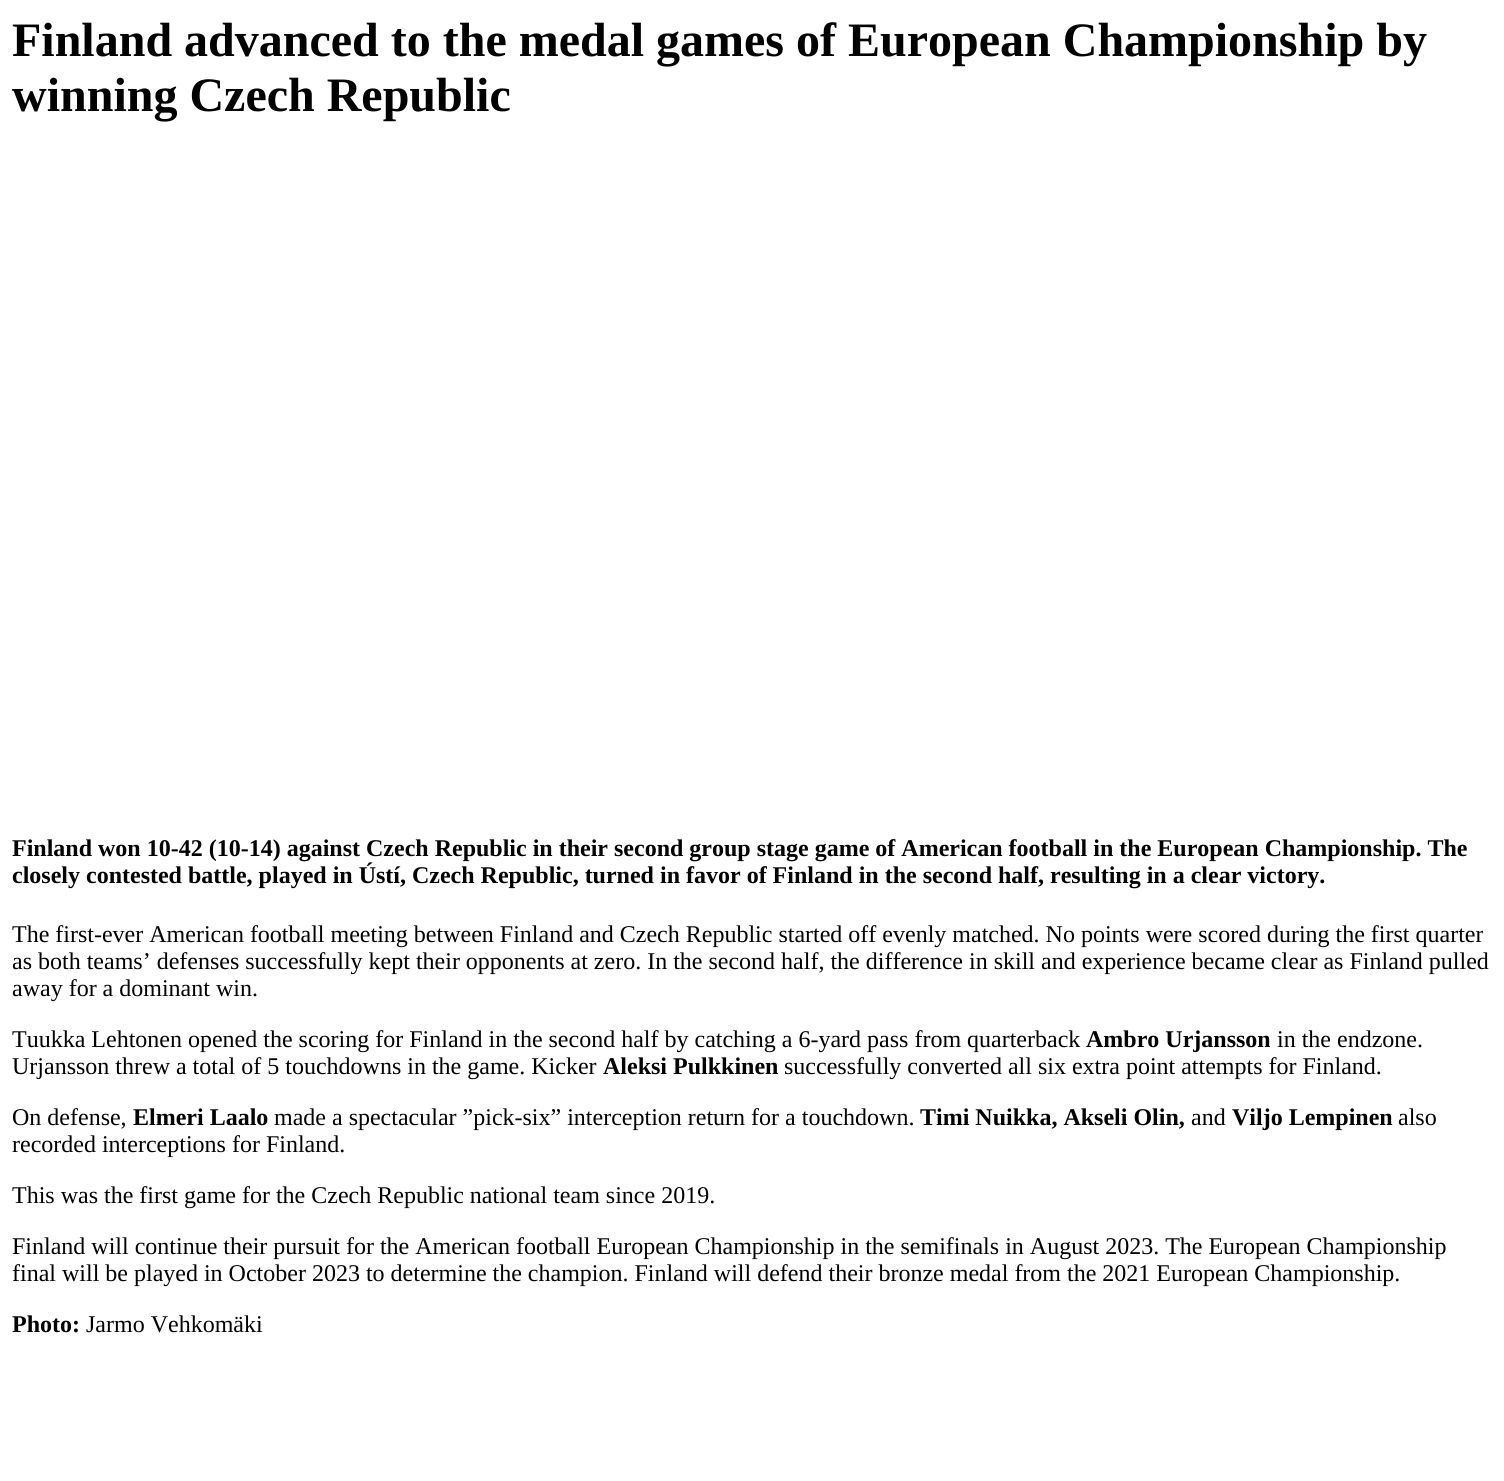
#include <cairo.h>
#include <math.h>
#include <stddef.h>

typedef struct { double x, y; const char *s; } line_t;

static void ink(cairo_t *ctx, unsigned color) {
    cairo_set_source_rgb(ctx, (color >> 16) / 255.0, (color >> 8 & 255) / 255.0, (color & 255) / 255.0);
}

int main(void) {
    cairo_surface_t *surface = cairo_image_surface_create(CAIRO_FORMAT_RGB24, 1504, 1481);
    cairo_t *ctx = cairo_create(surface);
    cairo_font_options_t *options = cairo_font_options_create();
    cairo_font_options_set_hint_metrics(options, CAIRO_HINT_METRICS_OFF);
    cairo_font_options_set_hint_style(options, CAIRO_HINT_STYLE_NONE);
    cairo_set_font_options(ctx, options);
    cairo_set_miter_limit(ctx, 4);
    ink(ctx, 0xFFFFFF);
    cairo_paint(ctx);
    cairo_select_font_face(ctx, "Liberation Serif", CAIRO_FONT_SLANT_NORMAL, CAIRO_FONT_WEIGHT_BOLD);
    cairo_set_font_size(ctx, 48);
    ink(ctx, 0x000000);
    cairo_move_to(ctx, 12, 56);
    cairo_show_text(ctx, "Finland advanced to the medal games of European Championship by");
    cairo_move_to(ctx, 12, 111);
    cairo_show_text(ctx, "winning Czech Republic");
    cairo_set_font_size(ctx, 24);
    cairo_move_to(ctx, 12, 856);
    cairo_show_text(ctx, "Finland won 10-42 (10-14) against Czech Republic in their second group stage game of American football in the European Championship. The");
    cairo_move_to(ctx, 12, 883);
    cairo_show_text(ctx, "closely contested battle, played in Ústí, Czech Republic, turned in favor of Finland in the second half, resulting in a clear victory.");
    cairo_select_font_face(ctx, "Liberation Serif", CAIRO_FONT_SLANT_NORMAL, CAIRO_FONT_WEIGHT_NORMAL);
    {
        static const line_t items[] = {
            {12, 942, "The first-ever American football meeting between Finland and Czech Republic started off evenly matched. No points were scored during the first quarter"},
            {12, 969, "as both teams’ defenses successfully kept their opponents at zero. In the second half, the difference in skill and experience became clear as Finland pulled"},
            {12, 996, "away for a dominant win."},
            {12, 1047, "Tuukka Lehtonen opened the scoring for Finland in the second half by catching a 6-yard pass from quarterback"},
        };
        for (size_t i = 0; i < sizeof items / sizeof *items; i++) {
            cairo_move_to(ctx, items[i].x, items[i].y);
            cairo_show_text(ctx, items[i].s);
        }
    }
    cairo_select_font_face(ctx, "Liberation Serif", CAIRO_FONT_SLANT_NORMAL, CAIRO_FONT_WEIGHT_BOLD);
    cairo_move_to(ctx, 1086, 1047);
    cairo_show_text(ctx, "Ambro Urjansson");
    cairo_select_font_face(ctx, "Liberation Serif", CAIRO_FONT_SLANT_NORMAL, CAIRO_FONT_WEIGHT_NORMAL);
    cairo_move_to(ctx, 1277, 1047);
    cairo_show_text(ctx, "in the endzone.");
    cairo_move_to(ctx, 12, 1074);
    cairo_show_text(ctx, "Urjansson threw a total of 5 touchdowns in the game. Kicker");
    cairo_select_font_face(ctx, "Liberation Serif", CAIRO_FONT_SLANT_NORMAL, CAIRO_FONT_WEIGHT_BOLD);
    cairo_move_to(ctx, 603, 1074);
    cairo_show_text(ctx, "Aleksi Pulkkinen");
    cairo_select_font_face(ctx, "Liberation Serif", CAIRO_FONT_SLANT_NORMAL, CAIRO_FONT_WEIGHT_NORMAL);
    cairo_move_to(ctx, 784, 1074);
    cairo_show_text(ctx, "successfully converted all six extra point attempts for Finland.");
    cairo_move_to(ctx, 12, 1125);
    cairo_show_text(ctx, "On defense,");
    cairo_select_font_face(ctx, "Liberation Serif", CAIRO_FONT_SLANT_NORMAL, CAIRO_FONT_WEIGHT_BOLD);
    cairo_move_to(ctx, 133, 1125);
    cairo_show_text(ctx, "Elmeri Laalo");
    cairo_select_font_face(ctx, "Liberation Serif", CAIRO_FONT_SLANT_NORMAL, CAIRO_FONT_WEIGHT_NORMAL);
    cairo_move_to(ctx, 274, 1125);
    cairo_show_text(ctx, "made a spectacular ”pick-six” interception return for a touchdown.");
    cairo_select_font_face(ctx, "Liberation Serif", CAIRO_FONT_SLANT_NORMAL, CAIRO_FONT_WEIGHT_BOLD);
    cairo_move_to(ctx, 920, 1125);
    cairo_show_text(ctx, "Timi Nuikka, Akseli Olin,");
    cairo_select_font_face(ctx, "Liberation Serif", CAIRO_FONT_SLANT_NORMAL, CAIRO_FONT_WEIGHT_NORMAL);
    cairo_move_to(ctx, 1191, 1125);
    cairo_show_text(ctx, "and");
    cairo_select_font_face(ctx, "Liberation Serif", CAIRO_FONT_SLANT_NORMAL, CAIRO_FONT_WEIGHT_BOLD);
    cairo_move_to(ctx, 1232, 1125);
    cairo_show_text(ctx, "Viljo Lempinen");
    cairo_select_font_face(ctx, "Liberation Serif", CAIRO_FONT_SLANT_NORMAL, CAIRO_FONT_WEIGHT_NORMAL);
    {
        static const line_t items[] = {
            {1398, 1125, "also"},
            {12, 1152, "recorded interceptions for Finland."},
            {12, 1203, "This was the first game for the Czech Republic national team since 2019."},
            {12, 1254, "Finland will continue their pursuit for the American football European Championship in the semifinals in August 2023. The European Championship"},
            {12, 1281, "final will be played in October 2023 to determine the champion. Finland will defend their bronze medal from the 2021 European Championship."},
        };
        for (size_t i = 0; i < sizeof items / sizeof *items; i++) {
            cairo_move_to(ctx, items[i].x, items[i].y);
            cairo_show_text(ctx, items[i].s);
        }
    }
    cairo_select_font_face(ctx, "Liberation Serif", CAIRO_FONT_SLANT_NORMAL, CAIRO_FONT_WEIGHT_BOLD);
    cairo_move_to(ctx, 12, 1332);
    cairo_show_text(ctx, "Photo:");
    cairo_select_font_face(ctx, "Liberation Serif", CAIRO_FONT_SLANT_NORMAL, CAIRO_FONT_WEIGHT_NORMAL);
    cairo_move_to(ctx, 86, 1332);
    cairo_show_text(ctx, "Jarmo Vehkomäki");
    cairo_surface_write_to_png(surface, "image.png");
    cairo_font_options_destroy(options);
    cairo_destroy(ctx);
    cairo_surface_destroy(surface);
    return 0;
}
